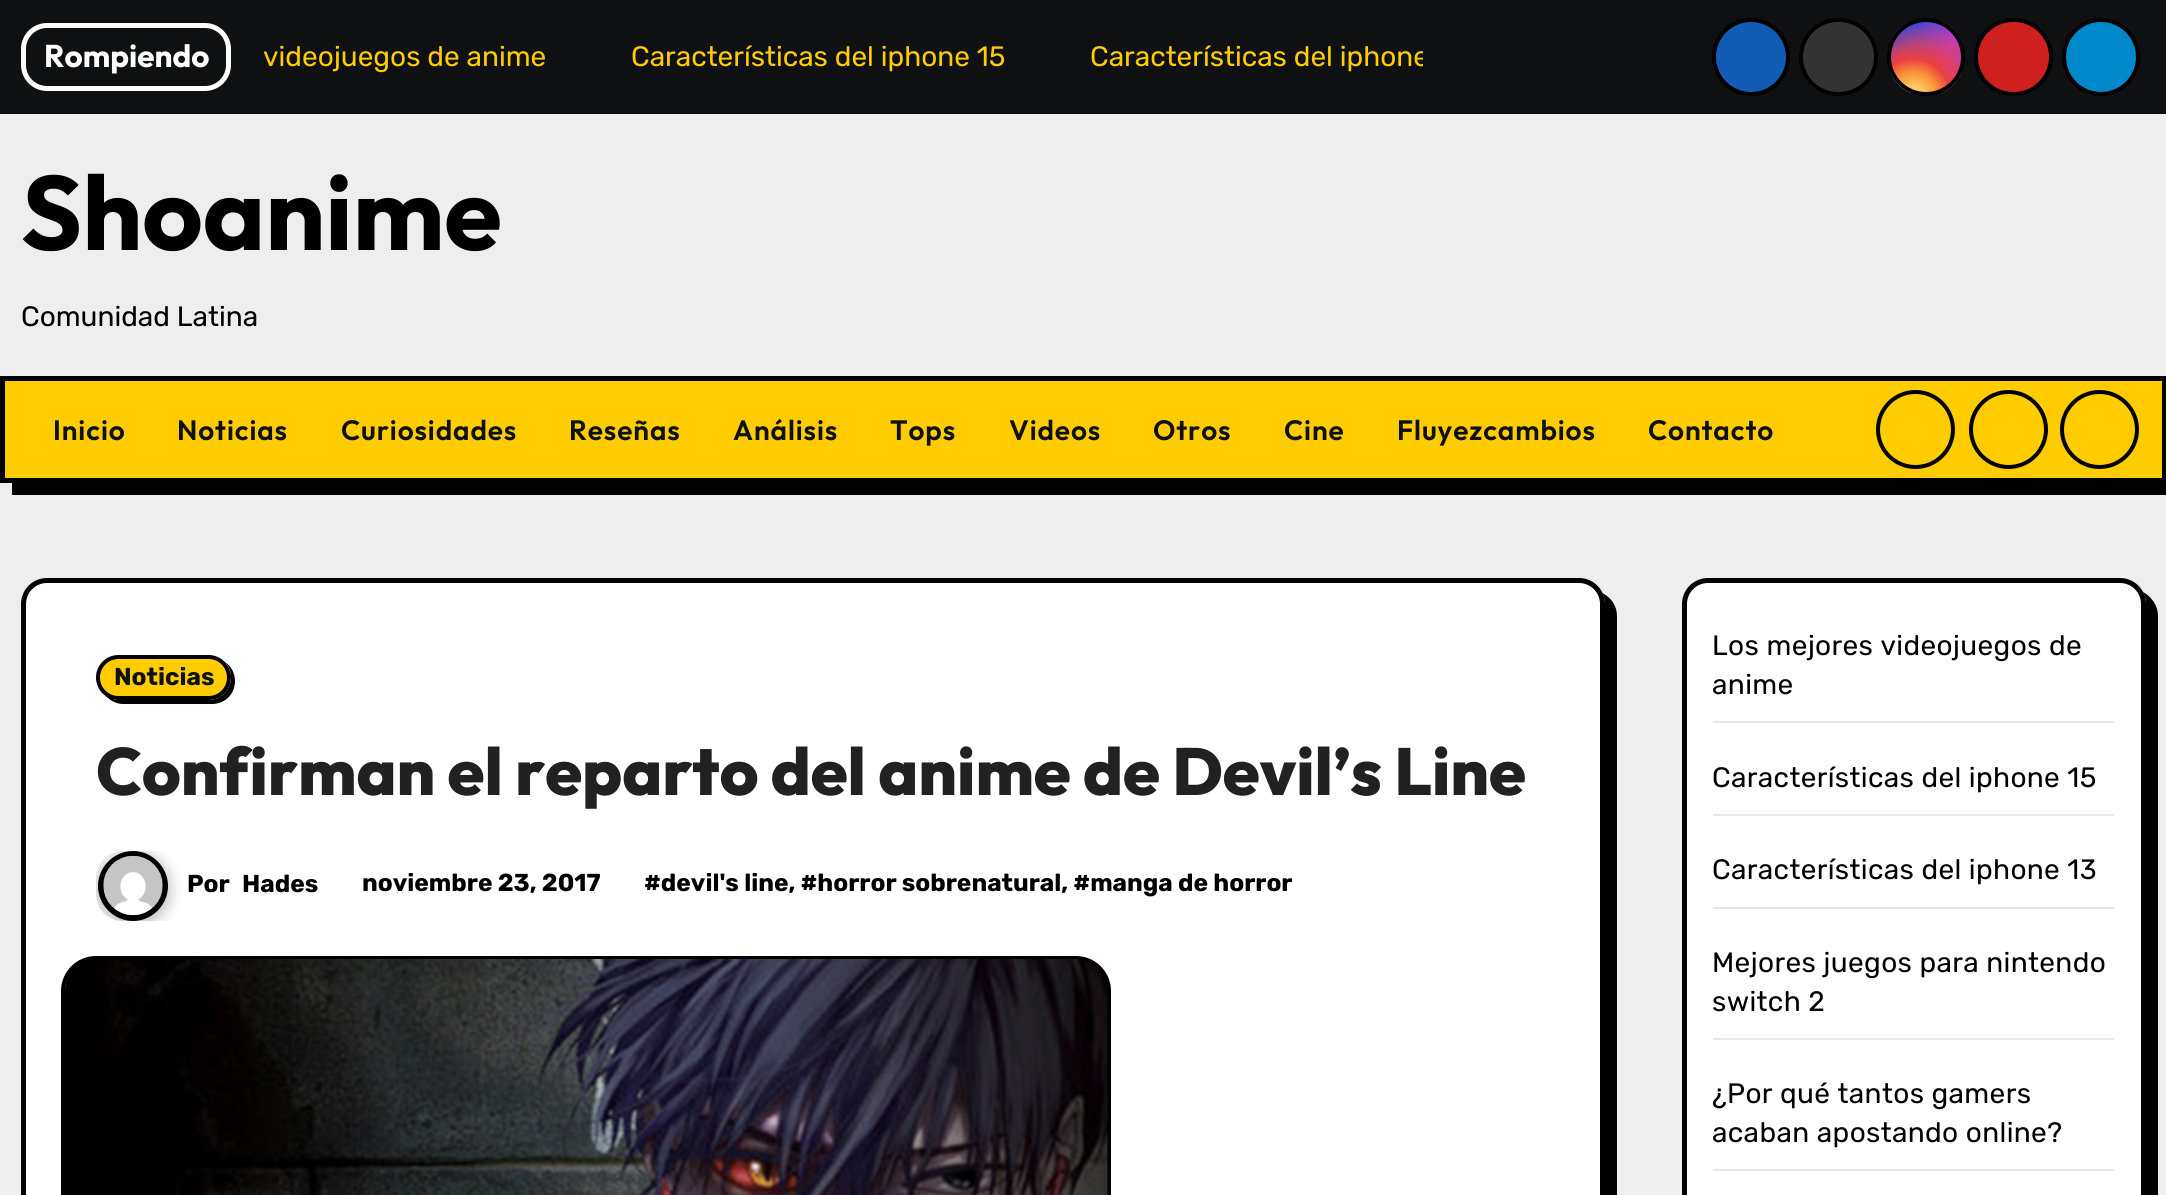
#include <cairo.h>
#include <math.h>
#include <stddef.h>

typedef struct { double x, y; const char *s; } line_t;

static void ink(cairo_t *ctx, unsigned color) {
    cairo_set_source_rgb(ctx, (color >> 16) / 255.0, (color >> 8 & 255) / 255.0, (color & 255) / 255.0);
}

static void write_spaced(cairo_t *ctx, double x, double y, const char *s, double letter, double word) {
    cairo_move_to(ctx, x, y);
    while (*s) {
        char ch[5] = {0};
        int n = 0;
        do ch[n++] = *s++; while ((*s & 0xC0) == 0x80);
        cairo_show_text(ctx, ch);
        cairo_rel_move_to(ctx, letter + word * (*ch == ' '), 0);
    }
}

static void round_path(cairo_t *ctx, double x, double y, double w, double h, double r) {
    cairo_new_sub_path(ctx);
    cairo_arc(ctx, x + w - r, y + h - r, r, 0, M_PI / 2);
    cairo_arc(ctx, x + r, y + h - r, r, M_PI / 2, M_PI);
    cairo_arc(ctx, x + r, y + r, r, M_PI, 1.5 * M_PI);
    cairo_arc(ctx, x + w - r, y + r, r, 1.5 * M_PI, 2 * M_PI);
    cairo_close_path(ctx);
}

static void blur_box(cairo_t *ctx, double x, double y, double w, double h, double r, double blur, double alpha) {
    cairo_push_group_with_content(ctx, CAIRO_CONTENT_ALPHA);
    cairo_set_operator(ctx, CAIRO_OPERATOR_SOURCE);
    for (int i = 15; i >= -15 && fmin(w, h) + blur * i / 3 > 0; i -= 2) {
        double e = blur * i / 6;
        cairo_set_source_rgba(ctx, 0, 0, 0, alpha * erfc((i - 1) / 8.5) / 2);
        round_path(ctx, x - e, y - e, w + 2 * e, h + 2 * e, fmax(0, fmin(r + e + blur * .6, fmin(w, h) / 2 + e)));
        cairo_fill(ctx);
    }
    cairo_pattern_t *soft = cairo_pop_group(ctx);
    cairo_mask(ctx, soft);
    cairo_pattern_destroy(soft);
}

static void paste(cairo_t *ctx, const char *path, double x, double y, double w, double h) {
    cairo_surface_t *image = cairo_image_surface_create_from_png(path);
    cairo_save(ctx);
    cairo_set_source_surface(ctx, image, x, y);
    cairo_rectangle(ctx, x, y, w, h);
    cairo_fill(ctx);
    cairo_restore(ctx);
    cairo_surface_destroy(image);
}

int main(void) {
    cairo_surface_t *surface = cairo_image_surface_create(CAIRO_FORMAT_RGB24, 2166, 1195);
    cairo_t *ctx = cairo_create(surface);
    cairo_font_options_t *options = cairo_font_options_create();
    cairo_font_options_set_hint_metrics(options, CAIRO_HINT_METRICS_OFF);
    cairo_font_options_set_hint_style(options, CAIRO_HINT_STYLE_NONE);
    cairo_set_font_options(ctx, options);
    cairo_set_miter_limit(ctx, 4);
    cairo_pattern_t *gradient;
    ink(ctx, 0xEEEEEE);
    cairo_paint(ctx);
    ink(ctx, 0x0F1012);
    cairo_rectangle(ctx, 0, 0, 2166, 114);
    cairo_fill(ctx);
    round_path(ctx, 23.5, 25.5, 205, 63, 23.5);
    ink(ctx, 0xFFFFFF);
    cairo_set_line_width(ctx, 5);
    cairo_stroke(ctx);
    cairo_select_font_face(ctx, "Outfit", CAIRO_FONT_SLANT_NORMAL, CAIRO_FONT_WEIGHT_BOLD);
    cairo_set_font_size(ctx, 31.5);
    cairo_move_to(ctx, 44, 67);
    cairo_show_text(ctx, "Rompiendo");
    cairo_select_font_face(ctx, "Rubik Light", CAIRO_FONT_SLANT_NORMAL, CAIRO_FONT_WEIGHT_NORMAL);
    cairo_set_font_size(ctx, 28);
    ink(ctx, 0xFFCC00);
    cairo_move_to(ctx, 263, 66);
    cairo_show_text(ctx, "videojuegos de anime");
    cairo_move_to(ctx, 631, 66);
    cairo_show_text(ctx, "Características del iphone 15");
    cairo_save(ctx);
    cairo_rectangle(ctx, 21, 32, 1402, 52);
    cairo_clip(ctx);
    cairo_move_to(ctx, 1090, 66);
    cairo_show_text(ctx, "Características del iphone");
    cairo_restore(ctx);
    ink(ctx, 0x135CB6);
    cairo_new_path(ctx);
    cairo_arc(ctx, 1751, 57, 37, 0, 2 * M_PI);
    cairo_fill_preserve(ctx);
    ink(ctx, 0x000000);
    cairo_set_line_width(ctx, 4);
    cairo_stroke(ctx);
    ink(ctx, 0x333333);
    round_path(ctx, 1801, 20, 75, 74, 37);
    cairo_fill_preserve(ctx);
    ink(ctx, 0x000000);
    cairo_stroke(ctx);
    cairo_save(ctx);
    round_path(ctx, 1887, 18, 78, 78, 39);
    cairo_clip(ctx);
    gradient = cairo_pattern_create_linear(1890, 21, 1962, 93);
    cairo_pattern_add_color_stop_rgba(gradient, 0.12, 0.137, 0.294, 0.843, 1);
    cairo_pattern_add_color_stop_rgba(gradient, 0.58, 0.765, 0.235, 0.745, 1);
    cairo_set_source(ctx, gradient);
    cairo_pattern_destroy(gradient);
    cairo_rectangle(ctx, 1890, 21, 72, 72);
    cairo_fill(ctx);
    gradient = cairo_pattern_create_radial(1913, 97, 0, 1913, 97, 90);
    cairo_pattern_add_color_stop_rgba(gradient, 0, 1, 0.882, 0.49, 1);
    cairo_pattern_add_color_stop_rgba(gradient, 0.1, 1, 0.804, 0.412, 1);
    cairo_pattern_add_color_stop_rgba(gradient, 0.28, 0.98, 0.569, 0.216, 1);
    cairo_pattern_add_color_stop_rgba(gradient, 0.42, 0.922, 0.255, 0.255, 1);
    cairo_pattern_add_color_stop_rgba(gradient, 0.82, 0.922, 0.255, 0.255, 0);
    cairo_set_source(ctx, gradient);
    cairo_pattern_destroy(gradient);
    cairo_rectangle(ctx, 1890, 24, 72, 69);
    cairo_fill(ctx);
    cairo_restore(ctx);
    cairo_arc(ctx, 1926, 57, 37, 0, 2 * M_PI);
    cairo_stroke(ctx);
    ink(ctx, 0xCD201F);
    round_path(ctx, 1976, 20, 75, 74, 37);
    cairo_fill_preserve(ctx);
    ink(ctx, 0x000000);
    cairo_stroke(ctx);
    ink(ctx, 0x0088CC);
    cairo_arc(ctx, 2101, 57, 37, 0, 2 * M_PI);
    cairo_fill_preserve(ctx);
    ink(ctx, 0x000000);
    cairo_stroke(ctx);
    cairo_select_font_face(ctx, "Outfit", CAIRO_FONT_SLANT_NORMAL, CAIRO_FONT_WEIGHT_BOLD);
    cairo_set_font_size(ctx, 105);
    cairo_move_to(ctx, 21, 250);
    cairo_show_text(ctx, "Shoanime");
    cairo_select_font_face(ctx, "Rubik Light", CAIRO_FONT_SLANT_NORMAL, CAIRO_FONT_WEIGHT_NORMAL);
    cairo_set_font_size(ctx, 28);
    cairo_move_to(ctx, 21, 326);
    cairo_show_text(ctx, "Comunidad Latina");
    cairo_new_path(ctx);
    cairo_move_to(ctx, 12, 483);
    cairo_line_to(ctx, 12, 495);
    cairo_line_to(ctx, 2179, 495);
    cairo_line_to(ctx, 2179, 389);
    cairo_line_to(ctx, 2166, 389);
    cairo_line_to(ctx, 2166, 483);
    cairo_close_path(ctx);
    cairo_fill(ctx);
    ink(ctx, 0xFFCC00);
    cairo_rectangle(ctx, 2.5, 378.5, 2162, 102);
    cairo_fill_preserve(ctx);
    ink(ctx, 0x000000);
    cairo_set_line_width(ctx, 5);
    cairo_stroke(ctx);
    cairo_select_font_face(ctx, "Outfit SemiBold", CAIRO_FONT_SLANT_NORMAL, CAIRO_FONT_WEIGHT_NORMAL);
    ink(ctx, 0x0F1012);
    {
        static const line_t items[] = {
            {53, 440, "Inicio"},
            {177, 440, "Noticias"},
            {341, 440, "Curiosidades"},
            {569, 440, "Reseñas"},
            {733, 440, "Análisis"},
            {890, 440, "Tops"},
            {1009, 440, "Videos"},
            {1153, 440, "Otros"},
            {1284, 440, "Cine"},
            {1397, 440, "Fluyezcambios"},
            {1648, 440, "Contacto"},
        };
        for (size_t i = 0; i < sizeof items / sizeof *items; i++) {
            write_spaced(ctx, items[i].x, items[i].y, items[i].s, 0.9, 0);
        }
    }
    cairo_new_path(ctx);
    cairo_arc(ctx, 1915.5, 429.5, 37.5, 0, 2 * M_PI);
    ink(ctx, 0x000000);
    cairo_set_line_width(ctx, 4);
    cairo_stroke(ctx);
    cairo_arc(ctx, 2008.5, 429.5, 37.5, 0, 2 * M_PI);
    cairo_stroke(ctx);
    cairo_arc(ctx, 2099.5, 429.5, 37.5, 0, 2 * M_PI);
    cairo_stroke(ctx);
    cairo_new_path(ctx);
    cairo_move_to(ctx, 35, 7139);
    cairo_curve_to(ctx, 40, 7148, 49, 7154, 59, 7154);
    cairo_line_to(ctx, 1591, 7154);
    cairo_curve_to(ctx, 1605, 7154, 1617, 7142, 1617, 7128);
    cairo_line_to(ctx, 1617, 616);
    cairo_curve_to(ctx, 1617, 606, 1611, 597, 1602, 593);
    cairo_curve_to(ctx, 1604, 596, 1605, 600, 1605, 604);
    cairo_line_to(ctx, 1605, 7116);
    cairo_curve_to(ctx, 1605, 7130, 1593, 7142, 1578, 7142);
    cairo_line_to(ctx, 47, 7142);
    cairo_curve_to(ctx, 43, 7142, 39, 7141, 35, 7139);
    cairo_close_path(ctx);
    cairo_fill(ctx);
    ink(ctx, 0xFFFFFF);
    round_path(ctx, 23.5, 580.5, 1579, 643, 23.5);
    cairo_fill_preserve(ctx);
    ink(ctx, 0x000000);
    cairo_set_line_width(ctx, 5);
    cairo_stroke(ctx);
    cairo_new_path(ctx);
    cairo_move_to(ctx, 105, 695);
    cairo_curve_to(ctx, 109, 700, 116, 704, 123, 704);
    cairo_line_to(ctx, 212, 704);
    cairo_curve_to(ctx, 225, 704, 235, 694, 235, 681);
    cairo_curve_to(ctx, 235, 673, 231, 666, 225, 662);
    cairo_curve_to(ctx, 229, 666, 231, 672, 231, 677);
    cairo_curve_to(ctx, 231, 690, 221, 700, 208, 700);
    cairo_line_to(ctx, 119, 700);
    cairo_curve_to(ctx, 114, 700, 109, 698, 105, 695);
    cairo_close_path(ctx);
    cairo_fill(ctx);
    ink(ctx, 0xFFCC00);
    round_path(ctx, 98, 657, 131, 41, 20.5);
    cairo_fill_preserve(ctx);
    ink(ctx, 0x000000);
    cairo_set_line_width(ctx, 4);
    cairo_stroke(ctx);
    cairo_select_font_face(ctx, "Rubik", CAIRO_FONT_SLANT_NORMAL, CAIRO_FONT_WEIGHT_BOLD);
    cairo_set_font_size(ctx, 24.5);
    ink(ctx, 0x0F1012);
    cairo_move_to(ctx, 114, 685);
    cairo_show_text(ctx, "Noticias");
    cairo_select_font_face(ctx, "Outfit ExtraBold", CAIRO_FONT_SLANT_NORMAL, CAIRO_FONT_WEIGHT_NORMAL);
    cairo_set_font_size(ctx, 66.5);
    ink(ctx, 0x212121);
    cairo_move_to(ctx, 96, 795);
    cairo_show_text(ctx, "Confirman el reparto del anime de Devil’s Line");
    cairo_save(ctx);
    round_path(ctx, 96, 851, 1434, 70, 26);
    cairo_clip(ctx);
    ink(ctx, 0x212121);
    blur_box(ctx, 96, 852, 74, 74, 37, 7, 0.3);
    cairo_restore(ctx);
    ink(ctx, 0x000000);
    cairo_new_path(ctx);
    cairo_move_to(ctx, 133, 851);
    cairo_curve_to(ctx, 114, 851, 98, 867, 98, 886);
    cairo_curve_to(ctx, 98, 905, 114, 921, 133, 921);
    cairo_curve_to(ctx, 152, 921, 168, 905, 168, 886);
    cairo_curve_to(ctx, 168, 867, 152, 851, 133, 851);
    cairo_close_path(ctx);
    cairo_fill(ctx);
    paste(ctx, "media/1.png", 103, 855, 60, 61);
    cairo_select_font_face(ctx, "Rubik", CAIRO_FONT_SLANT_NORMAL, CAIRO_FONT_WEIGHT_BOLD);
    cairo_set_font_size(ctx, 24.5);
    {
        static const line_t items[] = {
            {187, 892, "Por"},
            {242, 892, "Hades"},
            {362, 891, "noviembre 23, 2017"},
            {644, 891, "#devil's line, #horror sobrenatural, #manga de horror"},
        };
        for (size_t i = 0; i < sizeof items / sizeof *items; i++) {
            cairo_move_to(ctx, items[i].x, items[i].y);
            cairo_show_text(ctx, items[i].s);
        }
    }
    round_path(ctx, 63, 958, 1046, 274, 33);
    cairo_stroke(ctx);
    paste(ctx, "media/2.png", 65, 959, 1043, 236);
    cairo_new_path(ctx);
    cairo_move_to(ctx, 1697, 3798);
    cairo_curve_to(ctx, 1701, 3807, 1710, 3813, 1720, 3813);
    cairo_line_to(ctx, 2132, 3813);
    cairo_curve_to(ctx, 2146, 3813, 2158, 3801, 2158, 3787);
    cairo_line_to(ctx, 2158, 616);
    cairo_curve_to(ctx, 2158, 606, 2152, 597, 2143, 592);
    cairo_curve_to(ctx, 2145, 596, 2146, 600, 2146, 604);
    cairo_line_to(ctx, 2146, 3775);
    cairo_curve_to(ctx, 2146, 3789, 2134, 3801, 2119, 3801);
    cairo_line_to(ctx, 1708, 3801);
    cairo_curve_to(ctx, 1704, 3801, 1700, 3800, 1697, 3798);
    cairo_close_path(ctx);
    cairo_fill(ctx);
    ink(ctx, 0xFFFFFF);
    round_path(ctx, 1684.5, 580.5, 459, 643, 23.5);
    cairo_fill_preserve(ctx);
    ink(ctx, 0x000000);
    cairo_set_line_width(ctx, 5);
    cairo_stroke(ctx);
    ink(ctx, 0xE2E8F0);
    cairo_rectangle(ctx, 1713, 721, 401, 2);
    cairo_fill(ctx);
    cairo_select_font_face(ctx, "Rubik Light", CAIRO_FONT_SLANT_NORMAL, CAIRO_FONT_WEIGHT_NORMAL);
    cairo_set_font_size(ctx, 28);
    ink(ctx, 0x000000);
    write_spaced(ctx, 1712, 655, "Los mejores videojuegos de", 0.35, 0);
    write_spaced(ctx, 1712, 694, "anime", 0.35, 0);
    ink(ctx, 0xE2E8F0);
    cairo_rectangle(ctx, 1713, 814, 401, 2);
    cairo_fill(ctx);
    ink(ctx, 0x000000);
    write_spaced(ctx, 1712, 787, "Características del iphone 15", 0.35, 0);
    ink(ctx, 0xE2E8F0);
    cairo_rectangle(ctx, 1713, 907, 401, 2);
    cairo_fill(ctx);
    ink(ctx, 0x000000);
    write_spaced(ctx, 1712, 879, "Características del iphone 13", 0.35, 0);
    ink(ctx, 0xE2E8F0);
    cairo_rectangle(ctx, 1713, 1038, 401, 2);
    cairo_fill(ctx);
    ink(ctx, 0x000000);
    write_spaced(ctx, 1712, 972, "Mejores juegos para nintendo", 0.35, 0);
    write_spaced(ctx, 1712, 1011, "switch 2", 0.35, 0);
    ink(ctx, 0xE2E8F0);
    cairo_rectangle(ctx, 1713, 1169, 401, 2);
    cairo_fill(ctx);
    ink(ctx, 0x000000);
    write_spaced(ctx, 1712, 1103, "¿Por qué tantos gamers", 0.35, 0);
    write_spaced(ctx, 1712, 1142, "acaban apostando online?", 0.35, 0);
    cairo_surface_write_to_png(surface, "image.png");
    cairo_font_options_destroy(options);
    cairo_destroy(ctx);
    cairo_surface_destroy(surface);
    return 0;
}
